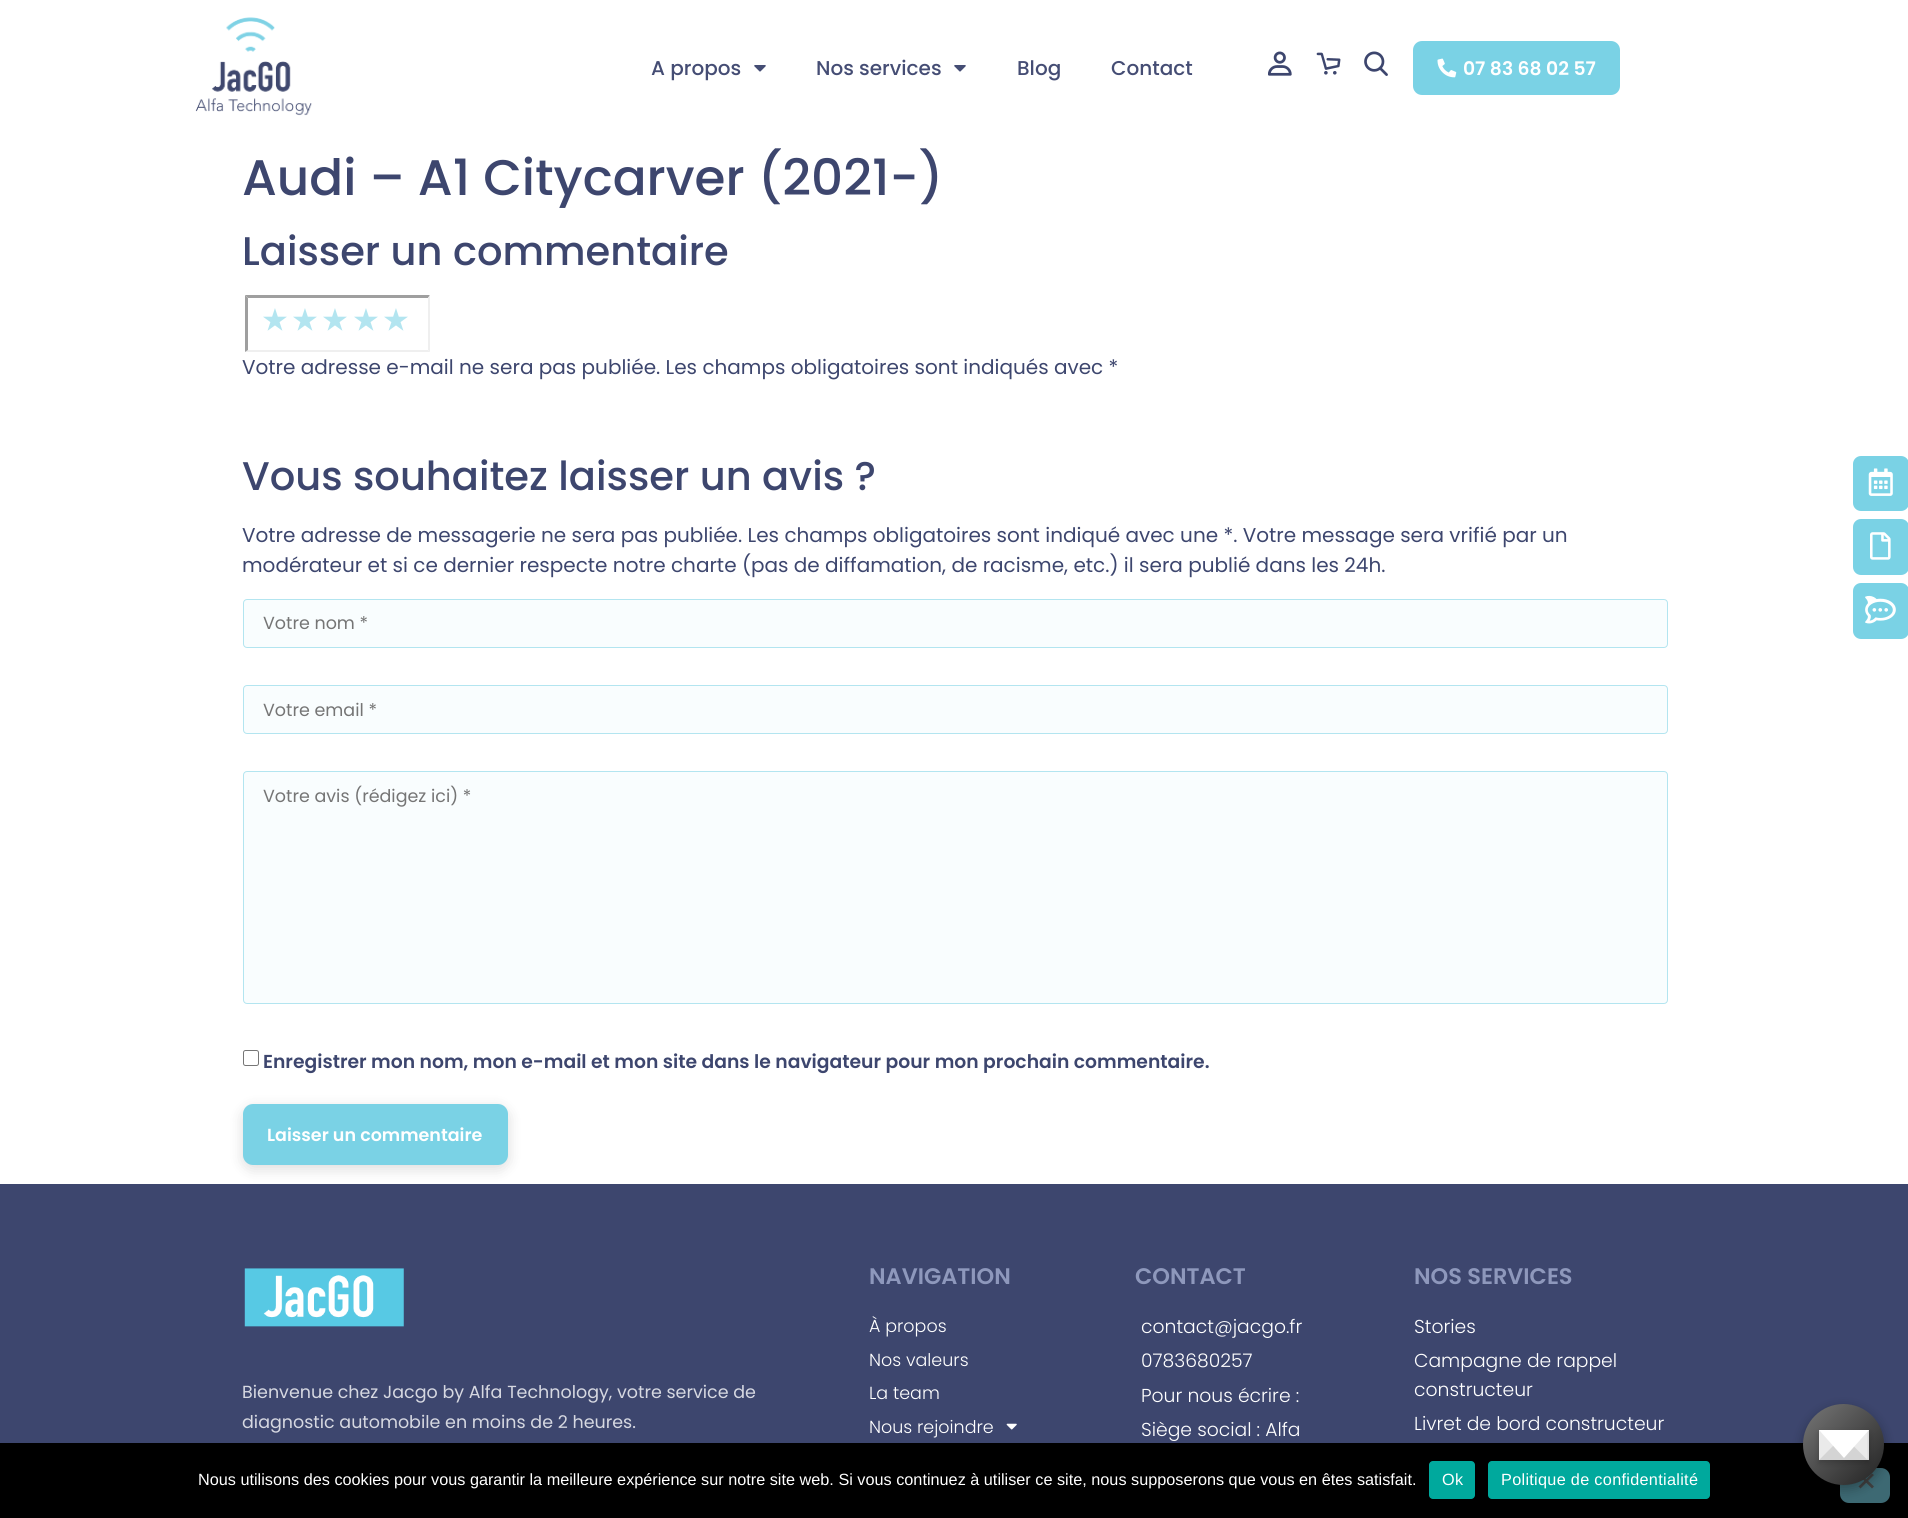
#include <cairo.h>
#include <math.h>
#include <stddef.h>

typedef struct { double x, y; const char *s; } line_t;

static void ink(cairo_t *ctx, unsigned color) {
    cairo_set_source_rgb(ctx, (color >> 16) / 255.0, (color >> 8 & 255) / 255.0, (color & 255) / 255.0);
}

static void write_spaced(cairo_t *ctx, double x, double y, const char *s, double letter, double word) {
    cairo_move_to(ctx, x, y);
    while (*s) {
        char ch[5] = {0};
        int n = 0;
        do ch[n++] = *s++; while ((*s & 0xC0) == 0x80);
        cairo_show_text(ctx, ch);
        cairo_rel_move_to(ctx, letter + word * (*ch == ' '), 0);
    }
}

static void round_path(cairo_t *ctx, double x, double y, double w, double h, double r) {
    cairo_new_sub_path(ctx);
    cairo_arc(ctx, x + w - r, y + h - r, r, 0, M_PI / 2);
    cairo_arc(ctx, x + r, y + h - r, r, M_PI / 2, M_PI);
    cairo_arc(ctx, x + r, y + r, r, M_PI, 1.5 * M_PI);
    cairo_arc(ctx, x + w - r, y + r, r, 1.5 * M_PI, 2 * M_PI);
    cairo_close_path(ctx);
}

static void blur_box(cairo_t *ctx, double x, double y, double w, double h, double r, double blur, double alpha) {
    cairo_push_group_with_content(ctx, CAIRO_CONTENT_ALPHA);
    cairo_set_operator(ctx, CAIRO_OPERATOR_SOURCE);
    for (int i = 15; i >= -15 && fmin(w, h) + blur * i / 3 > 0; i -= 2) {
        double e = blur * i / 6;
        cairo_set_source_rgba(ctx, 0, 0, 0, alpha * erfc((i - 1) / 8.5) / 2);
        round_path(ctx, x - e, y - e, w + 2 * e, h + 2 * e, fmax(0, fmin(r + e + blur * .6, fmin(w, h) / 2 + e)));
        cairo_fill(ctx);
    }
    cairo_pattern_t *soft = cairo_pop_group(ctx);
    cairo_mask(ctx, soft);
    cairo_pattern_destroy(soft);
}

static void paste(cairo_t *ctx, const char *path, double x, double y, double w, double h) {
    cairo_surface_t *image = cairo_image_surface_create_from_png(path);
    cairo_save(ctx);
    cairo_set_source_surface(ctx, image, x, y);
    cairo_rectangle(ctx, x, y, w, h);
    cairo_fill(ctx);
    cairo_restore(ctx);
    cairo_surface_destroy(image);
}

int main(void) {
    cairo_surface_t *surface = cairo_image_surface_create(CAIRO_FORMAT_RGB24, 1908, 1518);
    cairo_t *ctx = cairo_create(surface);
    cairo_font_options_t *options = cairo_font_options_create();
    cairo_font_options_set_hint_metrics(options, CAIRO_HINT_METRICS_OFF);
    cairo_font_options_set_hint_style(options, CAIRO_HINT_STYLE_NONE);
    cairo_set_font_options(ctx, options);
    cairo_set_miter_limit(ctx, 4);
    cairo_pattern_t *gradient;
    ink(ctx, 0xFFFFFF);
    cairo_paint(ctx);
    paste(ctx, "media/1.png", 195, 17, 117, 99);
    cairo_select_font_face(ctx, "Poppins Medium", CAIRO_FONT_SLANT_NORMAL, CAIRO_FONT_WEIGHT_NORMAL);
    cairo_set_font_size(ctx, 20);
    ink(ctx, 0x454D74);
    cairo_move_to(ctx, 651, 75);
    cairo_show_text(ctx, "A propos");
    paste(ctx, "media/2.png", 754, 65, 12, 7);
    cairo_move_to(ctx, 816, 75);
    cairo_show_text(ctx, "Nos services");
    paste(ctx, "media/2.png", 954, 65, 12, 7);
    cairo_move_to(ctx, 1017, 75);
    cairo_show_text(ctx, "Blog");
    cairo_move_to(ctx, 1111, 75);
    cairo_show_text(ctx, "Contact");
    paste(ctx, "media/3.png", 1268, 51, 24, 25);
    paste(ctx, "media/4.png", 1316, 52, 25, 23);
    paste(ctx, "media/5.png", 1364, 51, 24, 25);
    ink(ctx, 0x7AD2E5);
    round_path(ctx, 1413, 41, 207, 54, 9);
    cairo_fill(ctx);
    paste(ctx, "media/6.png", 1437, 58, 20, 20);
    cairo_select_font_face(ctx, "Poppins SemiBold", CAIRO_FONT_SLANT_NORMAL, CAIRO_FONT_WEIGHT_NORMAL);
    cairo_set_font_size(ctx, 18.75);
    ink(ctx, 0xFFFFFF);
    cairo_move_to(ctx, 1463, 75);
    cairo_show_text(ctx, "07 83 68 02 57");
    cairo_select_font_face(ctx, "Poppins Medium", CAIRO_FONT_SLANT_NORMAL, CAIRO_FONT_WEIGHT_NORMAL);
    cairo_set_font_size(ctx, 50);
    ink(ctx, 0x3D466E);
    cairo_move_to(ctx, 242, 195);
    cairo_show_text(ctx, "Audi – A1 Citycarver (2021-)");
    cairo_set_font_size(ctx, 40);
    cairo_move_to(ctx, 242, 265);
    cairo_show_text(ctx, "Laisser un commentaire");
    ink(ctx, 0x9F9F9F);
    cairo_new_path(ctx);
    cairo_move_to(ctx, 245, 295);
    cairo_line_to(ctx, 430, 295);
    cairo_line_to(ctx, 428, 298);
    cairo_line_to(ctx, 248, 298);
    cairo_close_path(ctx);
    cairo_fill(ctx);
    ink(ctx, 0xEFEFEF);
    cairo_new_path(ctx);
    cairo_move_to(ctx, 430, 295);
    cairo_line_to(ctx, 430, 352);
    cairo_line_to(ctx, 428, 350);
    cairo_line_to(ctx, 428, 298);
    cairo_close_path(ctx);
    cairo_fill(ctx);
    cairo_new_path(ctx);
    cairo_move_to(ctx, 430, 352);
    cairo_line_to(ctx, 245, 352);
    cairo_line_to(ctx, 248, 350);
    cairo_line_to(ctx, 428, 350);
    cairo_close_path(ctx);
    cairo_fill(ctx);
    ink(ctx, 0x9F9F9F);
    cairo_new_path(ctx);
    cairo_move_to(ctx, 245, 352);
    cairo_line_to(ctx, 245, 295);
    cairo_line_to(ctx, 248, 298);
    cairo_line_to(ctx, 248, 350);
    cairo_close_path(ctx);
    cairo_fill(ctx);
    cairo_select_font_face(ctx, "DejaVu Sans", CAIRO_FONT_SLANT_NORMAL, CAIRO_FONT_WEIGHT_BOLD);
    cairo_set_font_size(ctx, 28);
    ink(ctx, 0xB3E5F0);
    {
        static const line_t items[] = {
            {262, 330, "★"},
            {292, 330, "★"},
            {322, 330, "★"},
            {353, 330, "★"},
            {383, 330, "★"},
        };
        for (size_t i = 0; i < sizeof items / sizeof *items; i++) {
            cairo_move_to(ctx, items[i].x, items[i].y);
            cairo_show_text(ctx, items[i].s);
        }
    }
    cairo_select_font_face(ctx, "Poppins", CAIRO_FONT_SLANT_NORMAL, CAIRO_FONT_WEIGHT_NORMAL);
    cairo_set_font_size(ctx, 20);
    ink(ctx, 0x3D466E);
    cairo_move_to(ctx, 242, 374);
    cairo_show_text(ctx, "Votre adresse e-mail ne sera pas publiée. Les champs obligatoires sont indiqués avec *");
    cairo_select_font_face(ctx, "Poppins Medium", CAIRO_FONT_SLANT_NORMAL, CAIRO_FONT_WEIGHT_NORMAL);
    cairo_set_font_size(ctx, 40);
    cairo_move_to(ctx, 242, 490);
    cairo_show_text(ctx, "Vous souhaitez laisser un avis ?");
    cairo_select_font_face(ctx, "Poppins", CAIRO_FONT_SLANT_NORMAL, CAIRO_FONT_WEIGHT_NORMAL);
    cairo_set_font_size(ctx, 20);
    cairo_move_to(ctx, 242, 542);
    cairo_show_text(ctx, "Votre adresse de messagerie ne sera pas publiée. Les champs obligatoires sont indiqué avec une *. Votre message sera vrifié par un");
    cairo_move_to(ctx, 242, 572);
    cairo_show_text(ctx, "modérateur et si ce dernier respecte notre charte (pas de diffamation, de racisme, etc.) il sera publié dans les 24h.");
    ink(ctx, 0xF9FDFE);
    round_path(ctx, 243.5, 599.5, 1424, 48, 3.5);
    cairo_fill_preserve(ctx);
    ink(ctx, 0xB3E5F0);
    cairo_set_line_width(ctx, 1);
    cairo_stroke(ctx);
    cairo_set_font_size(ctx, 17.5);
    ink(ctx, 0x757575);
    cairo_move_to(ctx, 263, 629);
    cairo_show_text(ctx, "Votre nom *");
    ink(ctx, 0xF9FDFE);
    round_path(ctx, 243.5, 685.5, 1424, 48, 3.5);
    cairo_fill_preserve(ctx);
    ink(ctx, 0xB3E5F0);
    cairo_stroke(ctx);
    ink(ctx, 0x757575);
    cairo_move_to(ctx, 263, 716);
    cairo_show_text(ctx, "Votre email *");
    ink(ctx, 0xF9FDFE);
    round_path(ctx, 243.5, 771.5, 1424, 232, 3.5);
    cairo_fill_preserve(ctx);
    ink(ctx, 0xB3E5F0);
    cairo_stroke(ctx);
    ink(ctx, 0x757575);
    cairo_move_to(ctx, 263, 802);
    cairo_show_text(ctx, "Votre avis (rédigez ici) *");
    round_path(ctx, 243.5, 1050.5, 15, 15, 2);
    ink(ctx, 0x767676);
    cairo_stroke(ctx);
    cairo_select_font_face(ctx, "Poppins SemiBold", CAIRO_FONT_SLANT_NORMAL, CAIRO_FONT_WEIGHT_NORMAL);
    cairo_set_font_size(ctx, 18.75);
    ink(ctx, 0x3D466E);
    cairo_move_to(ctx, 263, 1068);
    cairo_show_text(ctx, "Enregistrer mon nom, mon e-mail et mon site dans le navigateur pour mon prochain commentaire.");
    ink(ctx, 0x000000);
    blur_box(ctx, 243, 1108, 265, 61, 10, 7, 0.14);
    ink(ctx, 0x7AD2E5);
    round_path(ctx, 243, 1104, 265, 61, 10);
    cairo_fill(ctx);
    cairo_set_font_size(ctx, 17.5);
    ink(ctx, 0xFFFFFF);
    cairo_move_to(ctx, 267, 1141);
    cairo_show_text(ctx, "Laisser un commentaire");
    ink(ctx, 0x7AD2E5);
    round_path(ctx, 1853, 456, 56, 55, 8);
    cairo_fill(ctx);
    paste(ctx, "media/7.png", 1868, 468, 25, 28);
    round_path(ctx, 1853, 519, 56, 56, 8);
    cairo_fill(ctx);
    paste(ctx, "media/8.png", 1870, 532, 21, 28);
    round_path(ctx, 1853, 583, 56, 56, 8);
    cairo_fill(ctx);
    paste(ctx, "media/9.png", 1865, 595, 31, 29);
    ink(ctx, 0x3D466E);
    cairo_rectangle(ctx, 0, 1184, 1908, 259);
    cairo_fill(ctx);
    paste(ctx, "media/10.png", 244, 1268, 160, 59);
    cairo_select_font_face(ctx, "Poppins", CAIRO_FONT_SLANT_NORMAL, CAIRO_FONT_WEIGHT_NORMAL);
    ink(ctx, 0xD6D8E1);
    cairo_move_to(ctx, 242, 1398);
    cairo_show_text(ctx, "Bienvenue chez Jacgo by Alfa Technology, votre service de");
    cairo_move_to(ctx, 242, 1428);
    cairo_show_text(ctx, "diagnostic automobile en moins de 2 heures.");
    cairo_select_font_face(ctx, "Poppins SemiBold", CAIRO_FONT_SLANT_NORMAL, CAIRO_FONT_WEIGHT_NORMAL);
    cairo_set_font_size(ctx, 22.5);
    ink(ctx, 0x8E98BC);
    cairo_move_to(ctx, 869, 1284);
    cairo_show_text(ctx, "NAVIGATION");
    cairo_select_font_face(ctx, "Poppins Light", CAIRO_FONT_SLANT_NORMAL, CAIRO_FONT_WEIGHT_NORMAL);
    cairo_set_font_size(ctx, 17.5);
    ink(ctx, 0xFFFFFF);
    {
        static const line_t items[] = {
            {869, 1332, "À propos"},
            {869, 1366, "Nos valeurs"},
            {869, 1399, "La team"},
            {869, 1433, "Nous rejoindre"},
        };
        for (size_t i = 0; i < sizeof items / sizeof *items; i++) {
            cairo_move_to(ctx, items[i].x, items[i].y);
            cairo_show_text(ctx, items[i].s);
        }
    }
    paste(ctx, "media/11.png", 1006, 1423, 11, 7);
    cairo_select_font_face(ctx, "Poppins SemiBold", CAIRO_FONT_SLANT_NORMAL, CAIRO_FONT_WEIGHT_NORMAL);
    cairo_set_font_size(ctx, 22.5);
    ink(ctx, 0x8E98BC);
    cairo_move_to(ctx, 1135, 1284);
    cairo_show_text(ctx, "CONTACT");
    cairo_select_font_face(ctx, "Poppins Light", CAIRO_FONT_SLANT_NORMAL, CAIRO_FONT_WEIGHT_NORMAL);
    cairo_set_font_size(ctx, 18.75);
    ink(ctx, 0xFFFFFF);
    {
        static const line_t items[] = {
            {1141, 1333, "contact@jacgo.fr"},
            {1141, 1367, "0783680257"},
            {1141, 1402, "Pour nous écrire :"},
            {1141, 1436, "Siège social : Alfa"},
        };
        for (size_t i = 0; i < sizeof items / sizeof *items; i++) {
            cairo_move_to(ctx, items[i].x, items[i].y);
            cairo_show_text(ctx, items[i].s);
        }
    }
    cairo_select_font_face(ctx, "Poppins SemiBold", CAIRO_FONT_SLANT_NORMAL, CAIRO_FONT_WEIGHT_NORMAL);
    cairo_set_font_size(ctx, 22.5);
    ink(ctx, 0x8E98BC);
    cairo_move_to(ctx, 1414, 1284);
    cairo_show_text(ctx, "NOS SERVICES");
    cairo_select_font_face(ctx, "Poppins Light", CAIRO_FONT_SLANT_NORMAL, CAIRO_FONT_WEIGHT_NORMAL);
    cairo_set_font_size(ctx, 18.75);
    ink(ctx, 0xFFFFFF);
    {
        static const line_t items[] = {
            {1414, 1333, "Stories"},
            {1414, 1367, "Campagne de rappel"},
            {1414, 1396, "constructeur"},
            {1414, 1430, "Livret de bord constructeur"},
        };
        for (size_t i = 0; i < sizeof items / sizeof *items; i++) {
            cairo_move_to(ctx, items[i].x, items[i].y);
            cairo_show_text(ctx, items[i].s);
        }
    }
    ink(ctx, 0x000000);
    cairo_rectangle(ctx, 0, 1443, 1908, 75);
    cairo_fill(ctx);
    ink(ctx, 0x3D6973);
    round_path(ctx, 1840, 1468, 50, 35, 9);
    cairo_fill(ctx);
    ink(ctx, 0x404040);
    cairo_new_path(ctx);
    cairo_move_to(ctx, 1872, 1473.5);
    cairo_line_to(ctx, 1874, 1475);
    cairo_line_to(ctx, 1860.5, 1488.5);
    cairo_line_to(ctx, 1858.5, 1486.5);
    cairo_close_path(ctx);
    cairo_fill(ctx);
    cairo_new_path(ctx);
    cairo_move_to(ctx, 1858.5, 1475);
    cairo_line_to(ctx, 1860.5, 1473.5);
    cairo_line_to(ctx, 1874, 1486.5);
    cairo_line_to(ctx, 1872, 1488.5);
    cairo_close_path(ctx);
    cairo_fill(ctx);
    ink(ctx, 0x000000);
    blur_box(ctx, 1803, 1408, 81, 81, 40.5, 6, 0.3);
    gradient = cairo_pattern_create_linear(1803, 1404, 1884, 1485);
    cairo_pattern_add_color_stop_rgba(gradient, 0, 0.467, 0.467, 0.467, 1);
    cairo_pattern_add_color_stop_rgba(gradient, 1, 0.133, 0.133, 0.133, 1);
    cairo_set_source(ctx, gradient);
    cairo_pattern_destroy(gradient);
    cairo_arc(ctx, 1843.5, 1444.5, 40.5, 0, 2 * M_PI);
    cairo_fill(ctx);
    ink(ctx, 0x000000);
    blur_box(ctx, 1819, 1433, 50, 30, 0, 3, 0.2);
    ink(ctx, 0xDDDDDD);
    cairo_rectangle(ctx, 1819, 1430, 50, 30);
    cairo_fill(ctx);
    ink(ctx, 0xD4D4D4);
    cairo_new_path(ctx);
    cairo_move_to(ctx, 1869, 1460);
    cairo_line_to(ctx, 1819, 1460);
    cairo_line_to(ctx, 1844, 1432);
    cairo_close_path(ctx);
    cairo_fill(ctx);
    ink(ctx, 0xEAEAEA);
    cairo_new_path(ctx);
    cairo_move_to(ctx, 1819, 1460);
    cairo_line_to(ctx, 1819, 1430);
    cairo_line_to(ctx, 1834, 1445);
    cairo_close_path(ctx);
    cairo_move_to(ctx, 1867.5, 1430);
    cairo_line_to(ctx, 1867.5, 1460);
    cairo_line_to(ctx, 1852.5, 1445);
    cairo_close_path(ctx);
    cairo_fill(ctx);
    ink(ctx, 0xFFFFFF);
    cairo_new_path(ctx);
    cairo_move_to(ctx, 1819, 1430);
    cairo_line_to(ctx, 1869, 1430);
    cairo_line_to(ctx, 1844, 1458);
    cairo_close_path(ctx);
    cairo_fill(ctx);
    cairo_select_font_face(ctx, "Liberation Sans", CAIRO_FONT_SLANT_NORMAL, CAIRO_FONT_WEIGHT_NORMAL);
    cairo_set_font_size(ctx, 16.25);
    cairo_move_to(ctx, 198, 1485);
    cairo_show_text(ctx, "Nous utilisons des cookies pour vous garantir la meilleure expérience sur notre site web. Si vous continuez à utiliser ce site, nous supposerons que vous en êtes satisfait.");
    ink(ctx, 0x00A99D);
    round_path(ctx, 1429, 1461, 46, 38, 4);
    cairo_fill(ctx);
    ink(ctx, 0xFFFFFF);
    write_spaced(ctx, 1442, 1485, "Ok", 0.3, 0);
    ink(ctx, 0x00A99D);
    round_path(ctx, 1488, 1461, 222, 38, 4);
    cairo_fill(ctx);
    ink(ctx, 0xFFFFFF);
    write_spaced(ctx, 1501, 1485, "Politique de confidentialité", 0.3, 0);
    cairo_surface_write_to_png(surface, "image.png");
    cairo_font_options_destroy(options);
    cairo_destroy(ctx);
    cairo_surface_destroy(surface);
    return 0;
}
